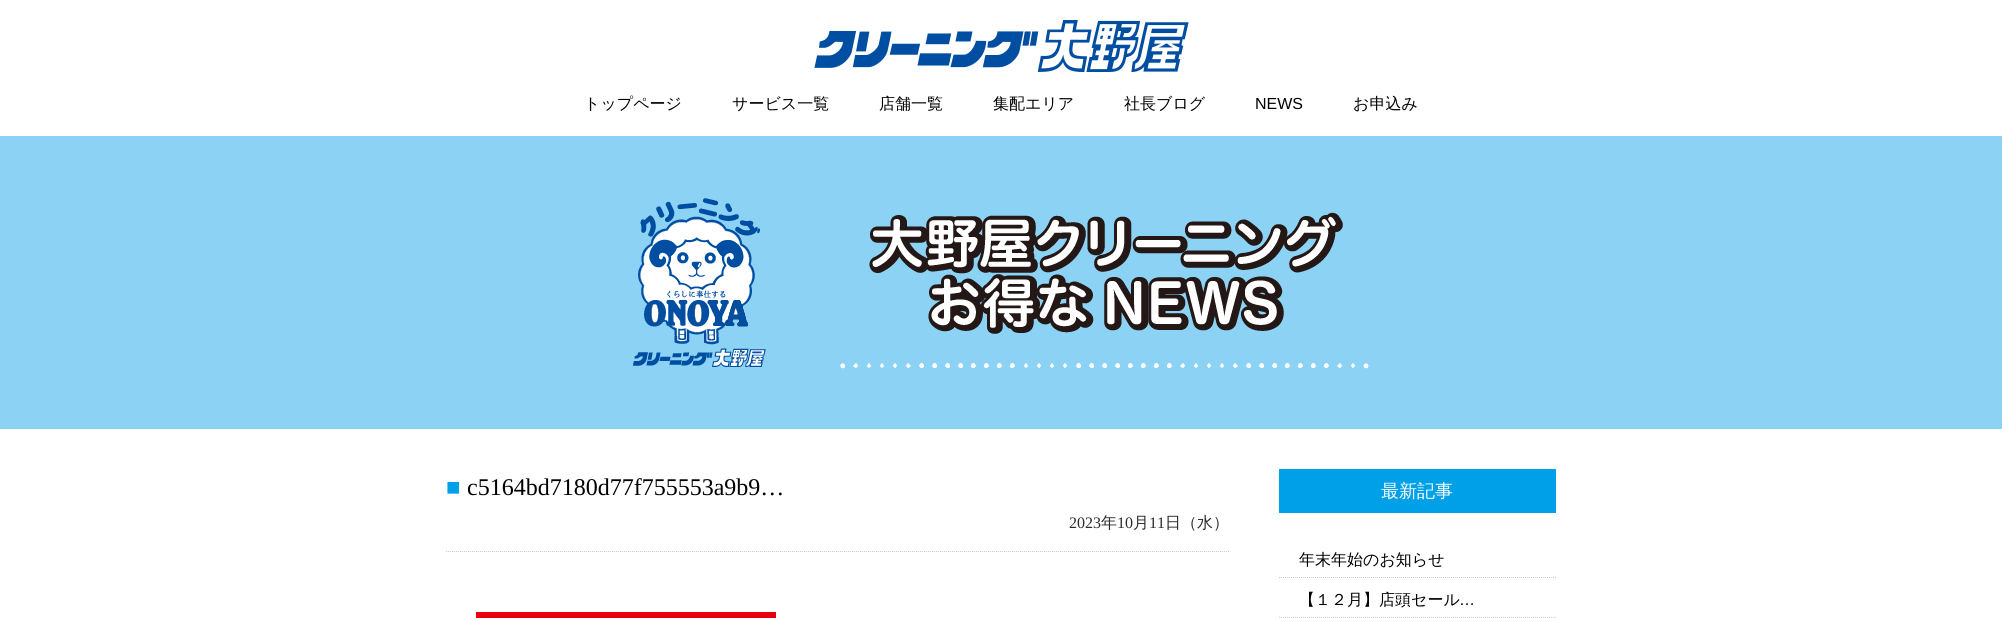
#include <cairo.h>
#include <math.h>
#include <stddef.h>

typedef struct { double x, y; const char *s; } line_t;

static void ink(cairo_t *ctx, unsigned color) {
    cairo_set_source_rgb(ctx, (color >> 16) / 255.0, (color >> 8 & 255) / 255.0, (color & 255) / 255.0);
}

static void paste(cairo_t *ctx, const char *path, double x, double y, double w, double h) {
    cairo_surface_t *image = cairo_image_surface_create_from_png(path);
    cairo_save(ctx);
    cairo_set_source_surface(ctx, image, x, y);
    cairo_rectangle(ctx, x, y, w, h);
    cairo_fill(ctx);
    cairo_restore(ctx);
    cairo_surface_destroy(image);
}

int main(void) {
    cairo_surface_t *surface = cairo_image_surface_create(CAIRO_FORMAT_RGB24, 2002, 618);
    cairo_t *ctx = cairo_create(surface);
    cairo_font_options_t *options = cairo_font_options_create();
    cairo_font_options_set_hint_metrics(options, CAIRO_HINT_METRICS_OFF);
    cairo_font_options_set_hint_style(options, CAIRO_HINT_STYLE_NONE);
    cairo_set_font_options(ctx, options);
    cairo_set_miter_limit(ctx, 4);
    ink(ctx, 0xFFFFFF);
    cairo_paint(ctx);
    paste(ctx, "media/1.png", 814, 20, 375, 52);
    cairo_select_font_face(ctx, "WenQuanYi Zen Hei Medium", CAIRO_FONT_SLANT_NORMAL, CAIRO_FONT_WEIGHT_NORMAL);
    cairo_set_font_size(ctx, 16);
    ink(ctx, 0x000000);
    {
        static const line_t items[] = {
            {584, 109, "トップページ"},
            {732, 109, "サービス一覧"},
            {879, 109, "店舗一覧"},
            {993, 109, "集配エリア"},
            {1124, 109, "社長ブログ"},
        };
        for (size_t i = 0; i < sizeof items / sizeof *items; i++) {
            cairo_move_to(ctx, items[i].x, items[i].y);
            cairo_show_text(ctx, items[i].s);
        }
    }
    cairo_select_font_face(ctx, "Liberation Sans", CAIRO_FONT_SLANT_NORMAL, CAIRO_FONT_WEIGHT_NORMAL);
    cairo_move_to(ctx, 1255, 109);
    cairo_show_text(ctx, "NEWS");
    cairo_select_font_face(ctx, "WenQuanYi Zen Hei Medium", CAIRO_FONT_SLANT_NORMAL, CAIRO_FONT_WEIGHT_NORMAL);
    cairo_move_to(ctx, 1353, 109);
    cairo_show_text(ctx, "お申込み");
    ink(ctx, 0x8CD2F5);
    cairo_rectangle(ctx, 0, 136, 2002, 293);
    cairo_fill(ctx);
    paste(ctx, "media/2.png", 633, 198, 736, 171);
    cairo_new_path(ctx);
    cairo_move_to(ctx, 446, 551.5);
    cairo_line_to(ctx, 1229, 551.5);
    ink(ctx, 0xC9CACA);
    cairo_set_line_width(ctx, 1);
    cairo_set_dash(ctx, (double[]){1, 1}, 2, 0);
    cairo_stroke(ctx);
    cairo_select_font_face(ctx, "Liberation Serif", CAIRO_FONT_SLANT_NORMAL, CAIRO_FONT_WEIGHT_NORMAL);
    cairo_set_font_size(ctx, 24);
    ink(ctx, 0x00A0E9);
    cairo_move_to(ctx, 446, 495);
    cairo_show_text(ctx, "■");
    ink(ctx, 0x000000);
    cairo_move_to(ctx, 467, 495);
    cairo_show_text(ctx, "c5164bd7180d77f755553a9b9…");
    cairo_set_font_size(ctx, 16);
    ink(ctx, 0x292B2C);
    cairo_move_to(ctx, 1069, 528);
    cairo_show_text(ctx, "2023");
    cairo_select_font_face(ctx, "WenQuanYi Zen Hei Medium", CAIRO_FONT_SLANT_NORMAL, CAIRO_FONT_WEIGHT_NORMAL);
    cairo_move_to(ctx, 1101, 528);
    cairo_show_text(ctx, "年");
    cairo_select_font_face(ctx, "Liberation Serif", CAIRO_FONT_SLANT_NORMAL, CAIRO_FONT_WEIGHT_NORMAL);
    cairo_move_to(ctx, 1117, 528);
    cairo_show_text(ctx, "10");
    cairo_select_font_face(ctx, "WenQuanYi Zen Hei Medium", CAIRO_FONT_SLANT_NORMAL, CAIRO_FONT_WEIGHT_NORMAL);
    cairo_move_to(ctx, 1133, 528);
    cairo_show_text(ctx, "月");
    cairo_select_font_face(ctx, "Liberation Serif", CAIRO_FONT_SLANT_NORMAL, CAIRO_FONT_WEIGHT_NORMAL);
    cairo_move_to(ctx, 1149, 528);
    cairo_show_text(ctx, "11");
    cairo_select_font_face(ctx, "WenQuanYi Zen Hei Medium", CAIRO_FONT_SLANT_NORMAL, CAIRO_FONT_WEIGHT_NORMAL);
    cairo_move_to(ctx, 1165, 528);
    cairo_show_text(ctx, "日（水）");
    ink(ctx, 0xE60012);
    cairo_rectangle(ctx, 476, 612, 300, 6);
    cairo_fill(ctx);
    ink(ctx, 0x00A0E9);
    cairo_rectangle(ctx, 1279, 469, 277, 44);
    cairo_fill(ctx);
    cairo_set_font_size(ctx, 18);
    ink(ctx, 0xFFFFFF);
    cairo_move_to(ctx, 1381, 497);
    cairo_show_text(ctx, "最新記事");
    cairo_new_path(ctx);
    cairo_move_to(ctx, 1279, 577.5);
    cairo_line_to(ctx, 1556, 577.5);
    ink(ctx, 0xC9CACA);
    cairo_stroke(ctx);
    cairo_set_font_size(ctx, 16);
    ink(ctx, 0x000000);
    cairo_move_to(ctx, 1299, 565);
    cairo_show_text(ctx, "年末年始のお知らせ");
    cairo_new_path(ctx);
    cairo_move_to(ctx, 1279, 617.5);
    cairo_line_to(ctx, 1556, 617.5);
    ink(ctx, 0xC9CACA);
    cairo_stroke(ctx);
    ink(ctx, 0x000000);
    cairo_move_to(ctx, 1299, 605);
    cairo_show_text(ctx, "【１２月】店頭セール");
    cairo_select_font_face(ctx, "Liberation Sans", CAIRO_FONT_SLANT_NORMAL, CAIRO_FONT_WEIGHT_NORMAL);
    cairo_move_to(ctx, 1459, 605);
    cairo_show_text(ctx, "…");
    cairo_surface_write_to_png(surface, "image.png");
    cairo_font_options_destroy(options);
    cairo_destroy(ctx);
    cairo_surface_destroy(surface);
    return 0;
}
